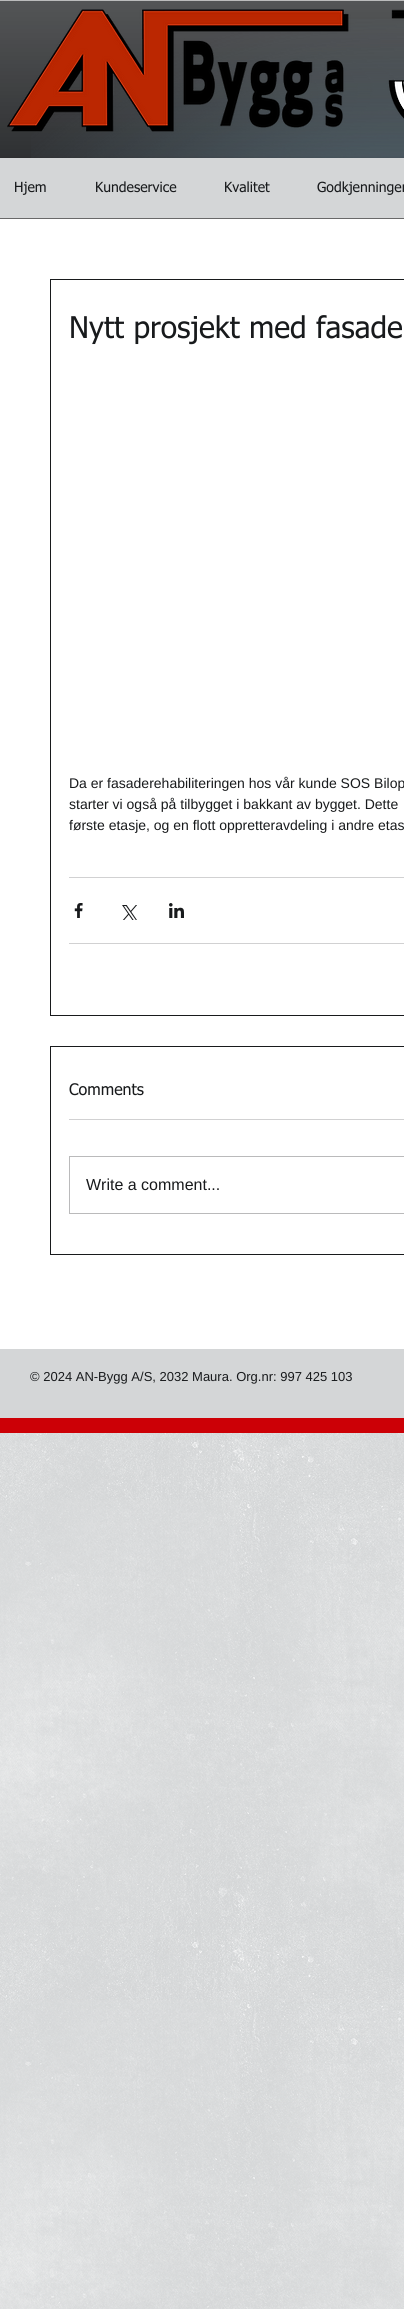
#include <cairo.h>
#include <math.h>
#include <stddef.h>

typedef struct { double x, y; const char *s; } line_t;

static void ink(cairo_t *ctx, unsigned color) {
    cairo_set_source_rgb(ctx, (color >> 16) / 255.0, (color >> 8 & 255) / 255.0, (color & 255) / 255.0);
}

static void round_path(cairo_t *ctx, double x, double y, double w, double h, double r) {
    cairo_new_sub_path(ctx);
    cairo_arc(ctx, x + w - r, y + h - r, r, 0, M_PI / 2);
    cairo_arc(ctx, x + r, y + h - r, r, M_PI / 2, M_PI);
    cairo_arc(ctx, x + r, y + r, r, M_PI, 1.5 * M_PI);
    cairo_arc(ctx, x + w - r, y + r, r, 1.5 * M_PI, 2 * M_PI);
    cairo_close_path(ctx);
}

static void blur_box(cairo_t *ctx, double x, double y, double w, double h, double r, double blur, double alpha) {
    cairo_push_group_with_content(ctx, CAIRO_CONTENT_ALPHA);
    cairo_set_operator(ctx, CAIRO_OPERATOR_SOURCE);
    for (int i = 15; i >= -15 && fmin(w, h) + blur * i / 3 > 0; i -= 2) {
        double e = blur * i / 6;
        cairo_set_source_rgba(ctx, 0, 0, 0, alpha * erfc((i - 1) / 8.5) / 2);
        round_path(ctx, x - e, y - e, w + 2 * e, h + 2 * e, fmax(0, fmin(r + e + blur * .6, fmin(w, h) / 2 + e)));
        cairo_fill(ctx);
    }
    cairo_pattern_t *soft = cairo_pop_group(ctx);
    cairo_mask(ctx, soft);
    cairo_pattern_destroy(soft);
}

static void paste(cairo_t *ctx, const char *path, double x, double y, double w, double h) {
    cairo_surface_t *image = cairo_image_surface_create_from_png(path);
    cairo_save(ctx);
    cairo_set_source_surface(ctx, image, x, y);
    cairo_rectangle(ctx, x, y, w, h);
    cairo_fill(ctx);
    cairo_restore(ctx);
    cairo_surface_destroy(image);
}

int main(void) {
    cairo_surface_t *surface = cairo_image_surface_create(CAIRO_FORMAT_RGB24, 404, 2309);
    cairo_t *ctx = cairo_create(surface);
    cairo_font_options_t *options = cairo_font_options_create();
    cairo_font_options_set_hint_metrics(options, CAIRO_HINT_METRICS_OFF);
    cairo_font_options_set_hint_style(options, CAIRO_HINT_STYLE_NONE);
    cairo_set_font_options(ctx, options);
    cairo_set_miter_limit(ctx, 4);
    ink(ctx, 0xD4D6D7);
    cairo_paint(ctx);
    ink(ctx, 0x181A1C);
    cairo_rectangle(ctx, 0, 1, 404, 157);
    cairo_fill(ctx);
    paste(ctx, "media/1.png", 0, 1, 404, 157);
    ink(ctx, 0xBBBBBC);
    cairo_rectangle(ctx, 0, 0, 404, 1);
    cairo_fill(ctx);
    ink(ctx, 0xFFFFFF);
    cairo_rectangle(ctx, 0, 218, 404, 1);
    cairo_fill(ctx);
    paste(ctx, "media/3.png", 31, 19, 373, 139);
    paste(ctx, "media/2.png", 7, 9, 397, 123);
    ink(ctx, 0x000000);
    blur_box(ctx, -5, 160, 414, 60, 0, 1.5, 0.7);
    ink(ctx, 0xD4D6D7);
    cairo_rectangle(ctx, 0, 158, 404, 60);
    cairo_fill(ctx);
    cairo_select_font_face(ctx, "tahoma", CAIRO_FONT_SLANT_NORMAL, CAIRO_FONT_WEIGHT_NORMAL);
    cairo_set_font_size(ctx, 14);
    ink(ctx, 0x181A1C);
    {
        static const line_t items[] = {
            {14, 192, "Hjem"},
            {95, 192, "Kundeservice"},
            {224, 192, "Kvalitet"},
            {317, 192, "Godkjenninger"},
        };
        for (size_t i = 0; i < sizeof items / sizeof *items; i++) {
            cairo_move_to(ctx, items[i].x, items[i].y);
            cairo_show_text(ctx, items[i].s);
        }
    }
    ink(ctx, 0xFFFFFF);
    cairo_rectangle(ctx, 0, 219, 404, 1130);
    cairo_fill(ctx);
    cairo_rectangle(ctx, 50.5, 279.5, 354, 736);
    ink(ctx, 0x181A1C);
    cairo_set_line_width(ctx, 1);
    cairo_stroke(ctx);
    cairo_set_font_size(ctx, 30);
    cairo_move_to(ctx, 69, 338);
    cairo_show_text(ctx, "Nytt prosjekt med fasade");
    cairo_select_font_face(ctx, "Liberation Sans", CAIRO_FONT_SLANT_NORMAL, CAIRO_FONT_WEIGHT_NORMAL);
    cairo_set_font_size(ctx, 14);
    {
        static const line_t items[] = {
            {69, 788, "Da er fasaderehabiliteringen hos vår kunde SOS Bilop"},
            {69, 809, "starter vi også på tilbygget i bakkant av bygget. Dette"},
            {69, 830, "første etasje, og en flott oppretteravdeling i andre etas"},
        };
        for (size_t i = 0; i < sizeof items / sizeof *items; i++) {
            cairo_move_to(ctx, items[i].x, items[i].y);
            cairo_show_text(ctx, items[i].s);
        }
    }
    ink(ctx, 0xD1D1D2);
    cairo_rectangle(ctx, 69, 877, 335, 1);
    cairo_fill(ctx);
    paste(ctx, "media/4.png", 74, 903, 9, 15);
    paste(ctx, "media/5.png", 122, 905, 15, 15);
    paste(ctx, "media/6.png", 169, 903, 15, 15);
    cairo_rectangle(ctx, 69, 943, 335, 1);
    cairo_fill(ctx);
    cairo_rectangle(ctx, 50.5, 1046.5, 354, 208);
    ink(ctx, 0x181A1C);
    cairo_stroke(ctx);
    cairo_select_font_face(ctx, "tahoma", CAIRO_FONT_SLANT_NORMAL, CAIRO_FONT_WEIGHT_NORMAL);
    cairo_set_font_size(ctx, 16);
    cairo_move_to(ctx, 69, 1095);
    cairo_show_text(ctx, "Comments");
    ink(ctx, 0xD1D1D2);
    cairo_rectangle(ctx, 69, 1119, 335, 1);
    cairo_fill(ctx);
    cairo_rectangle(ctx, 69.5, 1156.5, 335, 57);
    ink(ctx, 0xBABABB);
    cairo_stroke(ctx);
    cairo_select_font_face(ctx, "Liberation Sans", CAIRO_FONT_SLANT_NORMAL, CAIRO_FONT_WEIGHT_NORMAL);
    ink(ctx, 0x181A1C);
    cairo_move_to(ctx, 86, 1190);
    cairo_show_text(ctx, "Write a comment...");
    cairo_set_font_size(ctx, 13);
    cairo_move_to(ctx, 30, 1381);
    cairo_show_text(ctx, "© 2024 AN-Bygg A/S, 2032 Maura. Org.nr: 997 425 103");
    ink(ctx, 0xCC0006);
    cairo_rectangle(ctx, 0, 1418, 404, 15);
    cairo_fill(ctx);
    paste(ctx, "media/7.png", 0, 1433, 404, 876);
    cairo_surface_write_to_png(surface, "image.png");
    cairo_font_options_destroy(options);
    cairo_destroy(ctx);
    cairo_surface_destroy(surface);
    return 0;
}
